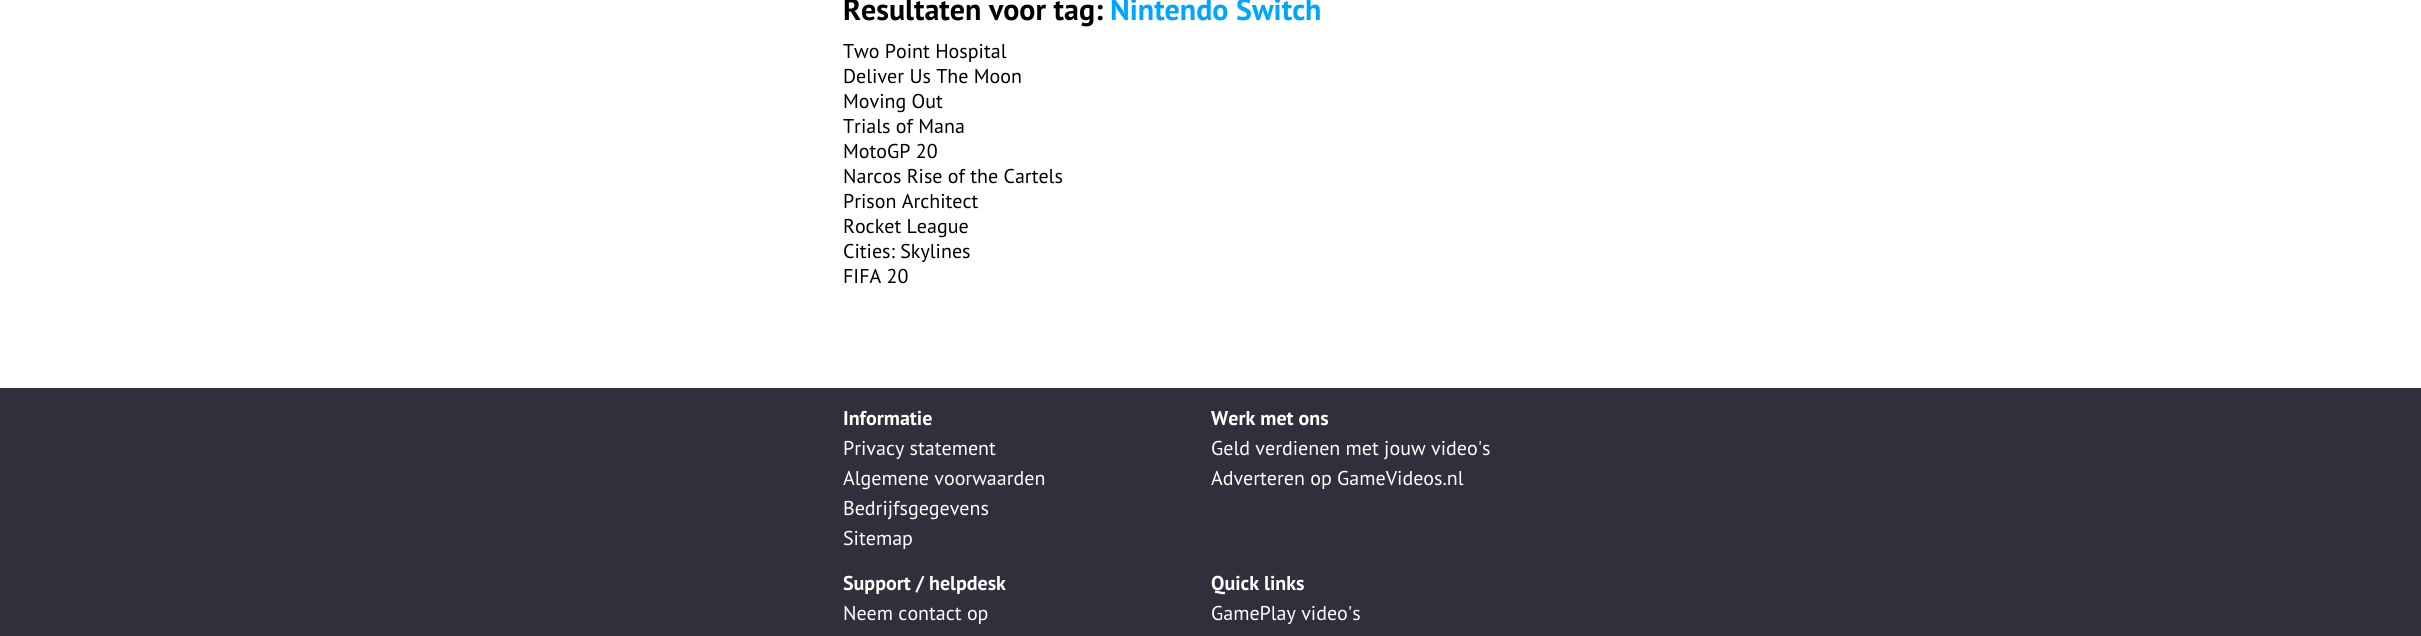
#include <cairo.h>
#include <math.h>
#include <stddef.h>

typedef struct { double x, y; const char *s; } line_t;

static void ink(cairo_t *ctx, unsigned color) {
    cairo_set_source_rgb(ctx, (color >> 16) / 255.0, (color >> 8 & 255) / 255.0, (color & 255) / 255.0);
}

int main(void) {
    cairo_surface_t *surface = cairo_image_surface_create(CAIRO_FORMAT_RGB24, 2421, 636);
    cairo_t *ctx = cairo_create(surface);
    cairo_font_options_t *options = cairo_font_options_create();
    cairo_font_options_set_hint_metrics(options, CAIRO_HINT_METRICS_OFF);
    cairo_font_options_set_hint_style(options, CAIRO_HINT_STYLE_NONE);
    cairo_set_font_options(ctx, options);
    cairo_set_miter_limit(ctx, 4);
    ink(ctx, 0xFFFFFF);
    cairo_paint(ctx);
    cairo_select_font_face(ctx, "PT Sans", CAIRO_FONT_SLANT_NORMAL, CAIRO_FONT_WEIGHT_BOLD);
    cairo_set_font_size(ctx, 30);
    ink(ctx, 0x000000);
    cairo_move_to(ctx, 843, 20);
    cairo_show_text(ctx, "Resultaten voor tag:");
    ink(ctx, 0x00A5FF);
    cairo_move_to(ctx, 1110, 20);
    cairo_show_text(ctx, "Nintendo Switch");
    cairo_select_font_face(ctx, "PT Sans", CAIRO_FONT_SLANT_NORMAL, CAIRO_FONT_WEIGHT_NORMAL);
    cairo_set_font_size(ctx, 20);
    ink(ctx, 0x000000);
    {
        static const line_t items[] = {
            {843, 58, "Two Point Hospital"},
            {843, 83, "Deliver Us The Moon"},
            {843, 108, "Moving Out"},
            {843, 133, "Trials of Mana"},
            {843, 158, "MotoGP 20"},
            {843, 183, "Narcos Rise of the Cartels"},
            {843, 208, "Prison Architect"},
            {843, 233, "Rocket League"},
            {843, 258, "Cities: Skylines"},
            {843, 283, "FIFA 20"},
        };
        for (size_t i = 0; i < sizeof items / sizeof *items; i++) {
            cairo_move_to(ctx, items[i].x, items[i].y);
            cairo_show_text(ctx, items[i].s);
        }
    }
    ink(ctx, 0x30303D);
    cairo_rectangle(ctx, 0, 388, 2421, 248);
    cairo_fill(ctx);
    cairo_select_font_face(ctx, "PT Sans", CAIRO_FONT_SLANT_NORMAL, CAIRO_FONT_WEIGHT_BOLD);
    ink(ctx, 0xFFFFFF);
    cairo_move_to(ctx, 843, 425);
    cairo_show_text(ctx, "Informatie");
    cairo_select_font_face(ctx, "PT Sans", CAIRO_FONT_SLANT_NORMAL, CAIRO_FONT_WEIGHT_NORMAL);
    {
        static const line_t items[] = {
            {843, 455, "Privacy statement"},
            {843, 485, "Algemene voorwaarden"},
            {843, 515, "Bedrijfsgegevens"},
            {843, 545, "Sitemap"},
        };
        for (size_t i = 0; i < sizeof items / sizeof *items; i++) {
            cairo_move_to(ctx, items[i].x, items[i].y);
            cairo_show_text(ctx, items[i].s);
        }
    }
    cairo_select_font_face(ctx, "PT Sans", CAIRO_FONT_SLANT_NORMAL, CAIRO_FONT_WEIGHT_BOLD);
    cairo_move_to(ctx, 1211, 425);
    cairo_show_text(ctx, "Werk met ons");
    cairo_select_font_face(ctx, "PT Sans", CAIRO_FONT_SLANT_NORMAL, CAIRO_FONT_WEIGHT_NORMAL);
    cairo_move_to(ctx, 1211, 455);
    cairo_show_text(ctx, "Geld verdienen met jouw video's");
    cairo_move_to(ctx, 1211, 485);
    cairo_show_text(ctx, "Adverteren op GameVideos.nl");
    cairo_select_font_face(ctx, "PT Sans", CAIRO_FONT_SLANT_NORMAL, CAIRO_FONT_WEIGHT_BOLD);
    cairo_move_to(ctx, 843, 590);
    cairo_show_text(ctx, "Support / helpdesk");
    cairo_select_font_face(ctx, "PT Sans", CAIRO_FONT_SLANT_NORMAL, CAIRO_FONT_WEIGHT_NORMAL);
    cairo_move_to(ctx, 843, 620);
    cairo_show_text(ctx, "Neem contact op");
    cairo_select_font_face(ctx, "PT Sans", CAIRO_FONT_SLANT_NORMAL, CAIRO_FONT_WEIGHT_BOLD);
    cairo_move_to(ctx, 1211, 590);
    cairo_show_text(ctx, "Quick links");
    cairo_select_font_face(ctx, "PT Sans", CAIRO_FONT_SLANT_NORMAL, CAIRO_FONT_WEIGHT_NORMAL);
    cairo_move_to(ctx, 1211, 620);
    cairo_show_text(ctx, "GamePlay video's");
    cairo_surface_write_to_png(surface, "image.png");
    cairo_font_options_destroy(options);
    cairo_destroy(ctx);
    cairo_surface_destroy(surface);
    return 0;
}
